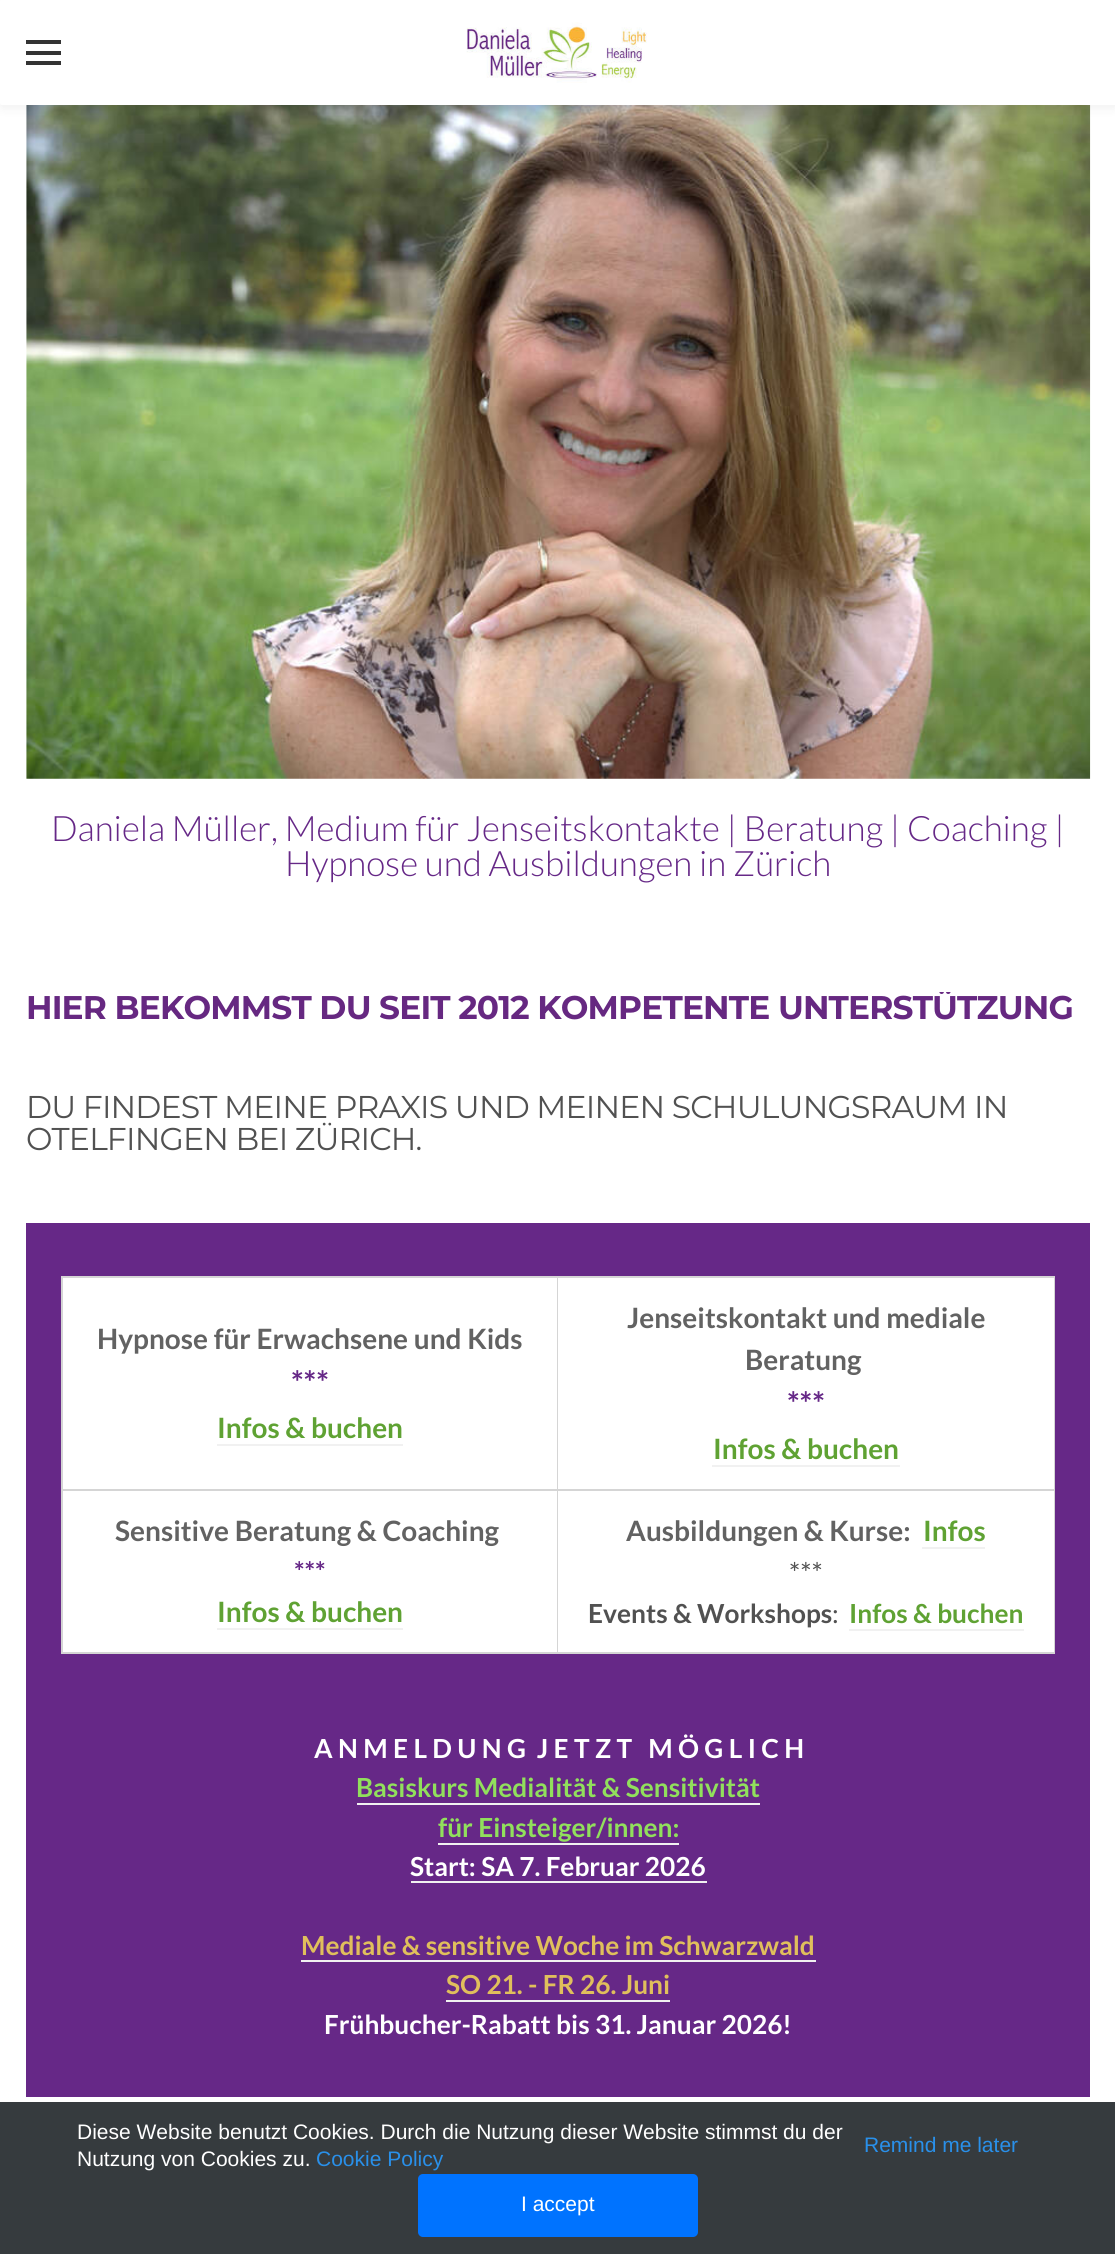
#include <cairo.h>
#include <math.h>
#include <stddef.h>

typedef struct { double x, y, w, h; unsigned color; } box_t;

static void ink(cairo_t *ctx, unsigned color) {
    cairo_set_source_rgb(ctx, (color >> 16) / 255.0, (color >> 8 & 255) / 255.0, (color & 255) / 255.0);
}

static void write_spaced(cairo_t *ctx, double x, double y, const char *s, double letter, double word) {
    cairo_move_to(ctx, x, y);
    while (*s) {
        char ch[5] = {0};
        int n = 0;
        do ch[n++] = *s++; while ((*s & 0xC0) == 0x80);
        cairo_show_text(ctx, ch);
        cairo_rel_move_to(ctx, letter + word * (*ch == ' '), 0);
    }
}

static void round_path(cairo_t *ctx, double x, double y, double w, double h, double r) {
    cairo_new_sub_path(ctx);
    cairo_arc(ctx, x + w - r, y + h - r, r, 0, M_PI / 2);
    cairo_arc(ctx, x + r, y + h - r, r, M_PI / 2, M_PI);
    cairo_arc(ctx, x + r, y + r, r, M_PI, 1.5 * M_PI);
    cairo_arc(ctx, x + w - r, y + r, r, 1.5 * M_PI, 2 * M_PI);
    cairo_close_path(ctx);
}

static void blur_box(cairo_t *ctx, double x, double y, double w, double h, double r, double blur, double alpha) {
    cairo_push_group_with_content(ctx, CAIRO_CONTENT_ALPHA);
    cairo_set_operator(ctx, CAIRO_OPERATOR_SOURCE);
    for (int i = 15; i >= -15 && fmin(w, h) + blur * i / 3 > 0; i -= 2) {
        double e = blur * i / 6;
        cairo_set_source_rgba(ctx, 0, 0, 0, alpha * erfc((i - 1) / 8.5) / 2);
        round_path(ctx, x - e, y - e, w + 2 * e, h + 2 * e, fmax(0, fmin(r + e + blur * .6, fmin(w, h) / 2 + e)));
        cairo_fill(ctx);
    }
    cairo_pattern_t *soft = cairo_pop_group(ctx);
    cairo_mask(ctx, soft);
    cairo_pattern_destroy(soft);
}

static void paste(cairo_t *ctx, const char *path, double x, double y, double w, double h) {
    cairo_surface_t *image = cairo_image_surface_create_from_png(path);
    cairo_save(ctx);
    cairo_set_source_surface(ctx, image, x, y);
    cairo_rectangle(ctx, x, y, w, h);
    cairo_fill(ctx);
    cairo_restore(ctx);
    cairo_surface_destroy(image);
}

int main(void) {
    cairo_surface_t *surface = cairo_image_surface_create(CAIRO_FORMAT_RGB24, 1115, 2254);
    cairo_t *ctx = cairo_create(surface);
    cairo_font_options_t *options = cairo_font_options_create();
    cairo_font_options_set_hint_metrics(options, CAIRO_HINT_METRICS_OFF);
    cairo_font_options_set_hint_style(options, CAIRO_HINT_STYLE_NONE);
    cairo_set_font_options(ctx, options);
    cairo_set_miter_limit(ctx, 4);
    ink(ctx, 0xFFFFFF);
    cairo_paint(ctx);
    paste(ctx, "media/2.png", 26, 105, 1065, 674);
    ink(ctx, 0x000000);
    blur_box(ctx, 0, 4, 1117, 105, 2, 5, 0.05);
    ink(ctx, 0xFFFFFF);
    round_path(ctx, 0, 0, 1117, 105, 2);
    cairo_fill(ctx);
    {
        static const box_t items[] = {
            {26, 40, 35, 4, 0x333333},
            {26, 51, 35, 4, 0x333333},
            {26, 61, 35, 4, 0x333333},
        };
        for (size_t i = 0; i < sizeof items / sizeof *items; i++) {
            ink(ctx, items[i].color);
            cairo_rectangle(ctx, items[i].x, items[i].y, items[i].w, items[i].h);
            cairo_fill(ctx);
        }
    }
    paste(ctx, "media/1.png", 466, 22, 181, 61);
    cairo_select_font_face(ctx, "Lato Light", CAIRO_FONT_SLANT_NORMAL, CAIRO_FONT_WEIGHT_NORMAL);
    cairo_set_font_size(ctx, 35);
    ink(ctx, 0x662887);
    cairo_move_to(ctx, 51, 841);
    cairo_show_text(ctx, "Daniela Müller, Medium für Jenseitskontakte | Beratung | Coaching |");
    cairo_move_to(ctx, 285, 876);
    cairo_show_text(ctx, "Hypnose und Ausbildungen in Zürich");
    cairo_save(ctx);
    cairo_rectangle(ctx, 26, 992, 1064, 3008);
    cairo_clip(ctx);
    cairo_select_font_face(ctx, "Montserrat Thin", CAIRO_FONT_SLANT_NORMAL, CAIRO_FONT_WEIGHT_NORMAL);
    cairo_set_font_size(ctx, 32.8);
    ink(ctx, 0x662881);
    write_spaced(ctx, 26, 1019, "HIER BEKOMMST DU SEIT 2012 KOMPETENTE UNTERSTÜTZUNG", -0.82, 0);
    cairo_restore(ctx);
    cairo_select_font_face(ctx, "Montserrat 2 Thin", CAIRO_FONT_SLANT_NORMAL, CAIRO_FONT_WEIGHT_NORMAL);
    cairo_set_font_size(ctx, 31.5);
    ink(ctx, 0x515151);
    write_spaced(ctx, 26, 1118, "DU FINDEST MEINE PRAXIS UND MEINEN SCHULUNGSRAUM IN", -0.82, 0);
    write_spaced(ctx, 26, 1150, "OTELFINGEN BEI ZÜRICH.", -0.82, 0);
    ink(ctx, 0x662887);
    cairo_rectangle(ctx, 26, 1223, 1064, 874);
    cairo_fill(ctx);
    cairo_rectangle(ctx, 62, 1277, 992, 376);
    ink(ctx, 0xD5D5D5);
    cairo_stroke(ctx);
    {
        static const box_t items[] = {
            {63, 1278, 494, 211, 0xFFFFFF},
            {557, 1278, 1, 374, 0xD5D5D5},
            {63, 1489, 991, 2, 0xD5D5D5},
        };
        for (size_t i = 0; i < sizeof items / sizeof *items; i++) {
            ink(ctx, items[i].color);
            cairo_rectangle(ctx, items[i].x, items[i].y, items[i].w, items[i].h);
            cairo_fill(ctx);
        }
    }
    cairo_select_font_face(ctx, "Lato", CAIRO_FONT_SLANT_NORMAL, CAIRO_FONT_WEIGHT_BOLD);
    cairo_set_font_size(ctx, 28);
    ink(ctx, 0x626262);
    write_spaced(ctx, 97, 1349, "Hypnose für Erwachsene und Kids", 0, 0.25);
    cairo_set_font_size(ctx, 31.5);
    ink(ctx, 0x662887);
    cairo_move_to(ctx, 291, 1394);
    cairo_show_text(ctx, "***");
    cairo_set_font_size(ctx, 28);
    ink(ctx, 0x5FA233);
    write_spaced(ctx, 217, 1438, "Infos & buchen", 0, 0.25);
    ink(ctx, 0xF1F1F1);
    cairo_rectangle(ctx, 217, 1444, 186, 2);
    cairo_fill(ctx);
    ink(ctx, 0xFFFFFF);
    cairo_rectangle(ctx, 558, 1278, 496, 211);
    cairo_fill(ctx);
    ink(ctx, 0x626262);
    write_spaced(ctx, 627, 1328, "Jenseitskontakt und mediale", 0, 0.25);
    cairo_move_to(ctx, 745, 1370);
    cairo_show_text(ctx, "Beratung");
    cairo_set_font_size(ctx, 31.5);
    ink(ctx, 0x662887);
    cairo_move_to(ctx, 787, 1415);
    cairo_show_text(ctx, "***");
    cairo_set_font_size(ctx, 28);
    ink(ctx, 0x5FA233);
    write_spaced(ctx, 713, 1459, "Infos & buchen", 0, 0.25);
    ink(ctx, 0xF1F1F1);
    cairo_rectangle(ctx, 712, 1465, 188, 2);
    cairo_fill(ctx);
    ink(ctx, 0xFFFFFF);
    cairo_rectangle(ctx, 63, 1491, 494, 161);
    cairo_fill(ctx);
    ink(ctx, 0x626262);
    write_spaced(ctx, 115, 1541, "Sensitive Beratung & Coaching", 0, 0.25);
    cairo_set_font_size(ctx, 26.25);
    ink(ctx, 0x662887);
    cairo_move_to(ctx, 294, 1581);
    cairo_show_text(ctx, "***");
    cairo_set_font_size(ctx, 28);
    ink(ctx, 0x5FA233);
    write_spaced(ctx, 217, 1622, "Infos &", 0, 0.25);
    ink(ctx, 0xF1F1F1);
    cairo_rectangle(ctx, 217, 1628, 186, 2);
    cairo_fill(ctx);
    ink(ctx, 0x5FA233);
    cairo_move_to(ctx, 311, 1622);
    cairo_show_text(ctx, "buchen");
    ink(ctx, 0xFFFFFF);
    cairo_rectangle(ctx, 558, 1491, 496, 161);
    cairo_fill(ctx);
    ink(ctx, 0x626262);
    cairo_move_to(ctx, 626, 1541);
    cairo_show_text(ctx, "Ausbildungen & Kurse:");
    ink(ctx, 0x5FA233);
    cairo_move_to(ctx, 923, 1541);
    cairo_show_text(ctx, "Infos");
    ink(ctx, 0xF1F1F1);
    cairo_rectangle(ctx, 922, 1547, 63, 2);
    cairo_fill(ctx);
    cairo_select_font_face(ctx, "Lato", CAIRO_FONT_SLANT_NORMAL, CAIRO_FONT_WEIGHT_NORMAL);
    ink(ctx, 0x515151);
    cairo_move_to(ctx, 789, 1583);
    cairo_show_text(ctx, "***");
    cairo_select_font_face(ctx, "Lato", CAIRO_FONT_SLANT_NORMAL, CAIRO_FONT_WEIGHT_BOLD);
    cairo_set_font_size(ctx, 26.25);
    write_spaced(ctx, 588, 1623, "Events & Workshops", 0, 0.25);
    cairo_select_font_face(ctx, "Lato", CAIRO_FONT_SLANT_NORMAL, CAIRO_FONT_WEIGHT_NORMAL);
    cairo_move_to(ctx, 832, 1623);
    cairo_show_text(ctx, ":");
    cairo_select_font_face(ctx, "Lato", CAIRO_FONT_SLANT_NORMAL, CAIRO_FONT_WEIGHT_BOLD);
    ink(ctx, 0x5FA233);
    write_spaced(ctx, 849, 1623, "Infos & buchen", 0, 0.25);
    ink(ctx, 0xF1F1F1);
    cairo_rectangle(ctx, 849, 1629, 175, 2);
    cairo_fill(ctx);
    ink(ctx, 0xFFFFFF);
    write_spaced(ctx, 314, 1758, "A N M E L D U N G  J E T Z T   M Ö G L I C H", 0, 0.3);
    ink(ctx, 0x91E05C);
    write_spaced(ctx, 356, 1797, "Basiskurs Medialität & Sensitivität", 0, 0.25);
    ink(ctx, 0xF1F1F1);
    cairo_rectangle(ctx, 357, 1803, 403, 2);
    cairo_fill(ctx);
    ink(ctx, 0x91E05C);
    write_spaced(ctx, 438, 1837, "für Einsteiger/innen:", 0, 0.25);
    ink(ctx, 0xF1F1F1);
    cairo_rectangle(ctx, 438, 1843, 241, 2);
    cairo_fill(ctx);
    ink(ctx, 0xFFFFFF);
    write_spaced(ctx, 410, 1876, "Start: SA 7. Februar 2026", 0, 0.25);
    ink(ctx, 0xF1F1F1);
    cairo_rectangle(ctx, 411, 1881, 296, 2);
    cairo_fill(ctx);
    ink(ctx, 0xE0BF5C);
    write_spaced(ctx, 301, 1955, "Mediale & sensitive Woche im Schwarzwald", 0, 0.25);
    ink(ctx, 0xF1F1F1);
    cairo_rectangle(ctx, 301, 1960, 515, 2);
    cairo_fill(ctx);
    ink(ctx, 0xE0BF5C);
    write_spaced(ctx, 446, 1994, "SO 21. - FR 26. Juni", 0, 0.25);
    ink(ctx, 0xF1F1F1);
    cairo_rectangle(ctx, 446, 2000, 224, 2);
    cairo_fill(ctx);
    ink(ctx, 0xFFFFFF);
    write_spaced(ctx, 324, 2034, "Frühbucher-Rabatt bis 31. Januar 2026!", 0, 0.25);
    ink(ctx, 0x363B3E);
    cairo_rectangle(ctx, 0, 2102, 1115, 152);
    cairo_fill(ctx);
    cairo_select_font_face(ctx, "Liberation Sans", CAIRO_FONT_SLANT_NORMAL, CAIRO_FONT_WEIGHT_NORMAL);
    cairo_set_font_size(ctx, 21);
    ink(ctx, 0xFFFFFF);
    cairo_move_to(ctx, 77, 2139);
    cairo_show_text(ctx, "Diese Website benutzt Cookies. Durch die Nutzung dieser Website stimmst du der");
    cairo_move_to(ctx, 77, 2166);
    cairo_show_text(ctx, "Nutzung von Cookies zu.");
    ink(ctx, 0x2990EA);
    cairo_move_to(ctx, 316, 2166);
    cairo_show_text(ctx, "Cookie Policy");
    cairo_move_to(ctx, 864, 2152);
    cairo_show_text(ctx, "Remind me later");
    ink(ctx, 0x0073FF);
    round_path(ctx, 418, 2174, 280, 63, 5);
    cairo_fill(ctx);
    ink(ctx, 0xFFFFFF);
    cairo_move_to(ctx, 521, 2211);
    cairo_show_text(ctx, "I accept");
    cairo_surface_write_to_png(surface, "image.png");
    cairo_font_options_destroy(options);
    cairo_destroy(ctx);
    cairo_surface_destroy(surface);
    return 0;
}
